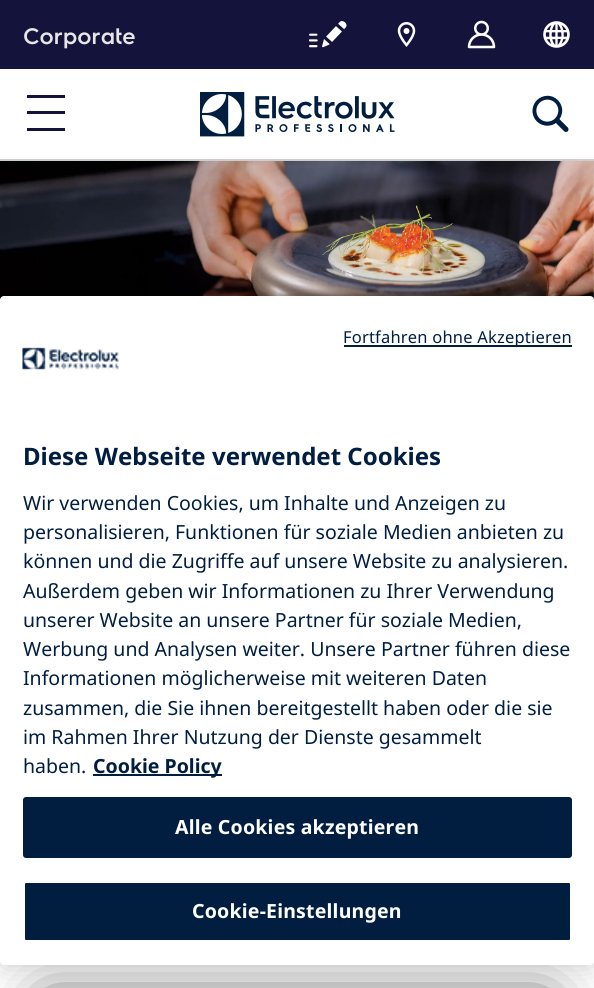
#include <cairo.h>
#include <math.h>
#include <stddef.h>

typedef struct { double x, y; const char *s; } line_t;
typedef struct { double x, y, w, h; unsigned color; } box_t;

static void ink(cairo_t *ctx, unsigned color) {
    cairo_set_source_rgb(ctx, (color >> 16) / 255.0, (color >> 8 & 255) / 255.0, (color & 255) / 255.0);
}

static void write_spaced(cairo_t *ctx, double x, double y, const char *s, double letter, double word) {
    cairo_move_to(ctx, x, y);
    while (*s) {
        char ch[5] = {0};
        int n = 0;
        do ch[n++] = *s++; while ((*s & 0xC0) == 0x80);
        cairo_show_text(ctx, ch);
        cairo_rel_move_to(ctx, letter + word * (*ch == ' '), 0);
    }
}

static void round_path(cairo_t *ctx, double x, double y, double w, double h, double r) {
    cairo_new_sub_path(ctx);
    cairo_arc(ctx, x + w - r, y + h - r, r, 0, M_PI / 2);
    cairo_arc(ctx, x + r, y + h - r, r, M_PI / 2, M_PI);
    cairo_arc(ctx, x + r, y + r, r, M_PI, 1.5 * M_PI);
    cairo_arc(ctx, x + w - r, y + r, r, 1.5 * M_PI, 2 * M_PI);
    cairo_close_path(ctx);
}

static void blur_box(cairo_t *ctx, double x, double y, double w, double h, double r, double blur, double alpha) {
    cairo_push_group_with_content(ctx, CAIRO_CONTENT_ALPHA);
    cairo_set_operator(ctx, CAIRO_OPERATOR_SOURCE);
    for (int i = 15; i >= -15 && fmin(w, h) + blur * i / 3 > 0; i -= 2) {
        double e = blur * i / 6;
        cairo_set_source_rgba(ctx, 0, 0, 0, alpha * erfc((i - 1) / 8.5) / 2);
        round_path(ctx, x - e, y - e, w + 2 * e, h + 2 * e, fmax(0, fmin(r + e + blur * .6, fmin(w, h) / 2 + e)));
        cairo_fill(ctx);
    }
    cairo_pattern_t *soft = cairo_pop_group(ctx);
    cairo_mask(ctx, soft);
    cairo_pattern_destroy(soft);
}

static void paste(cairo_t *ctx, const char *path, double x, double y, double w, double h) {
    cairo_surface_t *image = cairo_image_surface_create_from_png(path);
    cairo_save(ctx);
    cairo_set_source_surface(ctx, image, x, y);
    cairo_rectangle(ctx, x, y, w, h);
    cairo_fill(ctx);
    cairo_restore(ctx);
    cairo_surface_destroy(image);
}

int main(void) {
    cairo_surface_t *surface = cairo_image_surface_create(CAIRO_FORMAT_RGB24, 594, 988);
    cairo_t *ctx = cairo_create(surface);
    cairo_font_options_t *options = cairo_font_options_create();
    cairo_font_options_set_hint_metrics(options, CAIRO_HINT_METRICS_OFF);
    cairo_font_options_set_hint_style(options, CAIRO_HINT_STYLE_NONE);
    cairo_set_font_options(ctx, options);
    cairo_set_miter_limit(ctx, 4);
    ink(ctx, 0xFFFFFF);
    cairo_paint(ctx);
    ink(ctx, 0xCBCFD2);
    cairo_rectangle(ctx, 0, 159, 594, 2);
    cairo_fill(ctx);
    ink(ctx, 0x14133B);
    cairo_rectangle(ctx, 0, 0, 594, 69);
    cairo_fill(ctx);
    cairo_select_font_face(ctx, "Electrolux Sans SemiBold", CAIRO_FONT_SLANT_NORMAL, CAIRO_FONT_WEIGHT_NORMAL);
    cairo_set_font_size(ctx, 22.5);
    ink(ctx, 0xE6E6E6);
    cairo_move_to(ctx, 23, 44);
    cairo_show_text(ctx, "Corporate");
    paste(ctx, "media/1.png", 309, 21, 38, 27);
    paste(ctx, "media/2.png", 397, 22, 19, 25);
    paste(ctx, "media/3.png", 467, 20, 29, 29);
    paste(ctx, "media/4.png", 543, 21, 27, 27);
    {
        static const box_t items[] = {
            {27, 95, 38, 3, 0x14133B},
            {27, 111, 38, 3, 0x14133B},
            {27, 128, 38, 3, 0x14133B},
        };
        for (size_t i = 0; i < sizeof items / sizeof *items; i++) {
            ink(ctx, items[i].color);
            cairo_rectangle(ctx, items[i].x, items[i].y, items[i].w, items[i].h);
            cairo_fill(ctx);
        }
    }
    paste(ctx, "media/5.png", 200, 92, 195, 45);
    paste(ctx, "media/6.png", 532, 95, 37, 37);
    paste(ctx, "media/7.png", 0, 161, 594, 139);
    ink(ctx, 0x000000);
    blur_box(ctx, 0, 296, 594, 669, 4, 13.5, 0.2);
    ink(ctx, 0x111111);
    blur_box(ctx, 48, 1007, 498, 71, 0, 30, 1);
    ink(ctx, 0xFFFFFF);
    round_path(ctx, 0, 296, 594, 669, 4);
    cairo_fill(ctx);
    ink(ctx, 0x011E41);
    cairo_rectangle(ctx, 344, 345, 228, 2);
    cairo_fill(ctx);
    cairo_select_font_face(ctx, "Noto Sans", CAIRO_FONT_SLANT_NORMAL, CAIRO_FONT_WEIGHT_NORMAL);
    cairo_set_font_size(ctx, 16.5);
    write_spaced(ctx, 343, 343, "Fortfahren ohne Akzeptieren", 0.2, 0);
    cairo_select_font_face(ctx, "Noto Sans", CAIRO_FONT_SLANT_NORMAL, CAIRO_FONT_WEIGHT_BOLD);
    cairo_set_font_size(ctx, 24);
    cairo_move_to(ctx, 23, 465);
    cairo_show_text(ctx, "Diese Webseite verwendet Cookies");
    cairo_select_font_face(ctx, "Noto Sans", CAIRO_FONT_SLANT_NORMAL, CAIRO_FONT_WEIGHT_NORMAL);
    cairo_set_font_size(ctx, 19.5);
    {
        static const line_t items[] = {
            {23, 510, "Wir verwenden Cookies, um Inhalte und Anzeigen zu"},
            {23, 539, "personalisieren, Funktionen für soziale Medien anbieten zu"},
            {23, 568, "können und die Zugriffe auf unsere Website zu analysieren."},
            {23, 598, "Außerdem geben wir Informationen zu Ihrer Verwendung"},
            {23, 627, "unserer Website an unsere Partner für soziale Medien,"},
            {23, 656, "Werbung und Analysen weiter. Unsere Partner führen diese"},
            {23, 685, "Informationen möglicherweise mit weiteren Daten"},
            {23, 715, "zusammen, die Sie ihnen bereitgestellt haben oder die sie"},
            {23, 744, "im Rahmen Ihrer Nutzung der Dienste gesammelt"},
            {23, 773, "haben."},
        };
        for (size_t i = 0; i < sizeof items / sizeof *items; i++) {
            cairo_move_to(ctx, items[i].x, items[i].y);
            cairo_show_text(ctx, items[i].s);
        }
    }
    cairo_rectangle(ctx, 93, 774, 129, 2);
    cairo_fill(ctx);
    cairo_select_font_face(ctx, "Noto Sans", CAIRO_FONT_SLANT_NORMAL, CAIRO_FONT_WEIGHT_BOLD);
    cairo_move_to(ctx, 93, 773);
    cairo_show_text(ctx, "Cookie Policy");
    paste(ctx, "media/8.png", 22, 347, 97, 23);
    round_path(ctx, 24, 798, 547, 59, 2);
    cairo_fill_preserve(ctx);
    cairo_stroke(ctx);
    ink(ctx, 0xFFFFFF);
    write_spaced(ctx, 175, 834, "Alle Cookies akzeptieren", 0.2, 0);
    ink(ctx, 0x011E41);
    round_path(ctx, 24, 882, 547, 59, 2);
    cairo_fill_preserve(ctx);
    ink(ctx, 0xFFFFFF);
    cairo_stroke(ctx);
    write_spaced(ctx, 192, 918, "Cookie-Einstellungen", 0.2, 0);
    cairo_surface_write_to_png(surface, "image.png");
    cairo_font_options_destroy(options);
    cairo_destroy(ctx);
    cairo_surface_destroy(surface);
    return 0;
}
